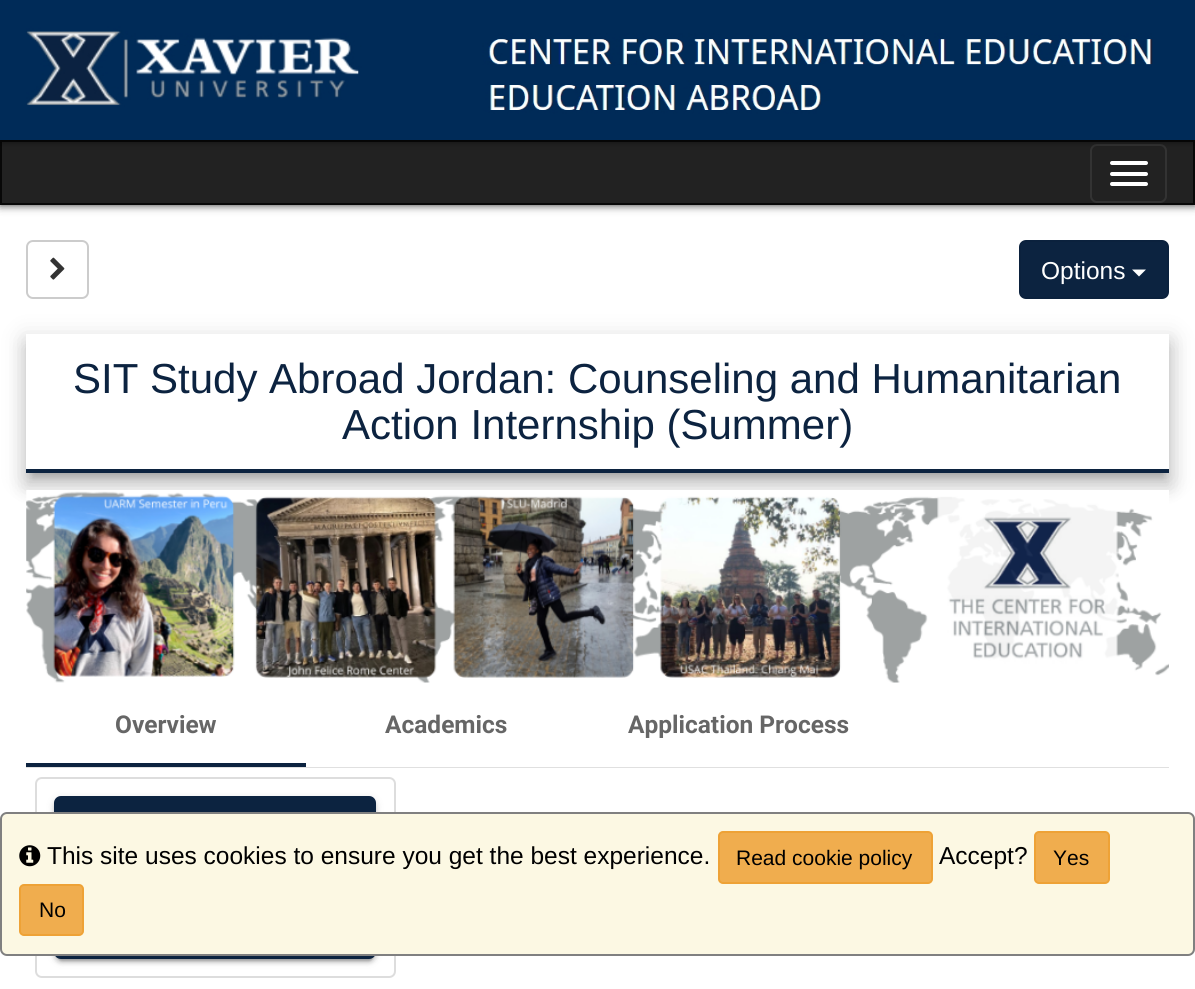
#include <cairo.h>
#include <math.h>
#include <stddef.h>

typedef struct { double x, y; const char *s; } line_t;

static void ink(cairo_t *ctx, unsigned color) {
    cairo_set_source_rgb(ctx, (color >> 16) / 255.0, (color >> 8 & 255) / 255.0, (color & 255) / 255.0);
}

static void round_path(cairo_t *ctx, double x, double y, double w, double h, double r) {
    cairo_new_sub_path(ctx);
    cairo_arc(ctx, x + w - r, y + h - r, r, 0, M_PI / 2);
    cairo_arc(ctx, x + r, y + h - r, r, M_PI / 2, M_PI);
    cairo_arc(ctx, x + r, y + r, r, M_PI, 1.5 * M_PI);
    cairo_arc(ctx, x + w - r, y + r, r, 1.5 * M_PI, 2 * M_PI);
    cairo_close_path(ctx);
}

static void blur_box(cairo_t *ctx, double x, double y, double w, double h, double r, double blur, double alpha) {
    cairo_push_group_with_content(ctx, CAIRO_CONTENT_ALPHA);
    cairo_set_operator(ctx, CAIRO_OPERATOR_SOURCE);
    for (int i = 15; i >= -15 && fmin(w, h) + blur * i / 3 > 0; i -= 2) {
        double e = blur * i / 6;
        cairo_set_source_rgba(ctx, 0, 0, 0, alpha * erfc((i - 1) / 8.5) / 2);
        round_path(ctx, x - e, y - e, w + 2 * e, h + 2 * e, fmax(0, fmin(r + e + blur * .6, fmin(w, h) / 2 + e)));
        cairo_fill(ctx);
    }
    cairo_pattern_t *soft = cairo_pop_group(ctx);
    cairo_mask(ctx, soft);
    cairo_pattern_destroy(soft);
}

static void paste(cairo_t *ctx, const char *path, double x, double y, double w, double h) {
    cairo_surface_t *image = cairo_image_surface_create_from_png(path);
    cairo_save(ctx);
    cairo_set_source_surface(ctx, image, x, y);
    cairo_rectangle(ctx, x, y, w, h);
    cairo_fill(ctx);
    cairo_restore(ctx);
    cairo_surface_destroy(image);
}

int main(void) {
    cairo_surface_t *surface = cairo_image_surface_create(CAIRO_FORMAT_RGB24, 1195, 989);
    cairo_t *ctx = cairo_create(surface);
    cairo_font_options_t *options = cairo_font_options_create();
    cairo_font_options_set_hint_metrics(options, CAIRO_HINT_METRICS_OFF);
    cairo_font_options_set_hint_style(options, CAIRO_HINT_STYLE_NONE);
    cairo_set_font_options(ctx, options);
    cairo_set_miter_limit(ctx, 4);
    ink(ctx, 0xFFFFFF);
    cairo_paint(ctx);
    ink(ctx, 0x000000);
    blur_box(ctx, 0, 140, 1195, 65, 0, 4.5, 0.8);
    ink(ctx, 0x222222);
    cairo_rectangle(ctx, 1, 141, 1193, 63);
    cairo_fill_preserve(ctx);
    ink(ctx, 0x080808);
    cairo_stroke(ctx);
    round_path(ctx, 1091, 145, 75, 57, 6);
    ink(ctx, 0x333333);
    cairo_stroke(ctx);
    ink(ctx, 0x000000);
    blur_box(ctx, 0, 0, 1195, 140, 0, 4.5, 0.8);
    paste(ctx, "media/1.png", 0, 0, 1195, 140);
    ink(ctx, 0xFFFFFF);
    round_path(ctx, 1110, 161, 38, 4, 2);
    cairo_fill(ctx);
    round_path(ctx, 1110, 172, 38, 4, 2);
    cairo_fill(ctx);
    round_path(ctx, 1110, 182, 38, 4, 2);
    cairo_fill(ctx);
    round_path(ctx, 27, 241, 61, 57, 6);
    ink(ctx, 0xCCCCCC);
    cairo_stroke(ctx);
    paste(ctx, "media/2.png", 50, 257, 15, 23);
    ink(ctx, 0x0C2340);
    round_path(ctx, 1020, 241, 148, 57, 6);
    cairo_fill_preserve(ctx);
    ink(ctx, 0x0B213D);
    cairo_stroke(ctx);
    cairo_select_font_face(ctx, "Liberation Sans", CAIRO_FONT_SLANT_NORMAL, CAIRO_FONT_WEIGHT_NORMAL);
    cairo_set_font_size(ctx, 24.5);
    ink(ctx, 0xFFFFFF);
    cairo_move_to(ctx, 1041, 279);
    cairo_show_text(ctx, "Options");
    cairo_new_path(ctx);
    cairo_move_to(ctx, 1132, 269.5);
    cairo_line_to(ctx, 1146, 269.5);
    cairo_line_to(ctx, 1139, 276.5);
    cairo_close_path(ctx);
    cairo_fill(ctx);
    cairo_save(ctx);
    cairo_set_fill_rule(ctx, CAIRO_FILL_RULE_EVEN_ODD);
    cairo_new_path(ctx);
    cairo_move_to(ctx, 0, 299);
    cairo_line_to(ctx, 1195, 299);
    cairo_line_to(ctx, 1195, 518);
    cairo_line_to(ctx, 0, 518);
    cairo_close_path(ctx);
    cairo_move_to(ctx, 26, 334);
    cairo_line_to(ctx, 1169, 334);
    cairo_line_to(ctx, 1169, 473);
    cairo_line_to(ctx, 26, 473);
    cairo_close_path(ctx);
    cairo_clip(ctx);
    ink(ctx, 0x000000);
    blur_box(ctx, 23, 336, 1150, 145, 0, 12, 0.12);
    cairo_restore(ctx);
    cairo_save(ctx);
    cairo_set_fill_rule(ctx, CAIRO_FILL_RULE_EVEN_ODD);
    cairo_new_path(ctx);
    cairo_move_to(ctx, 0, 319);
    cairo_line_to(ctx, 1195, 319);
    cairo_line_to(ctx, 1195, 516);
    cairo_line_to(ctx, 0, 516);
    cairo_close_path(ctx);
    cairo_move_to(ctx, 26, 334);
    cairo_line_to(ctx, 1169, 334);
    cairo_line_to(ctx, 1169, 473);
    cairo_line_to(ctx, 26, 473);
    cairo_close_path(ctx);
    cairo_clip(ctx);
    ink(ctx, 0x000000);
    blur_box(ctx, 25, 347, 1146, 141, 0, 9, 0.14);
    cairo_restore(ctx);
    cairo_save(ctx);
    cairo_set_fill_rule(ctx, CAIRO_FILL_RULE_EVEN_ODD);
    cairo_new_path(ctx);
    cairo_move_to(ctx, 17, 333);
    cairo_line_to(ctx, 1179, 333);
    cairo_line_to(ctx, 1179, 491);
    cairo_line_to(ctx, 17, 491);
    cairo_close_path(ctx);
    cairo_move_to(ctx, 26, 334);
    cairo_line_to(ctx, 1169, 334);
    cairo_line_to(ctx, 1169, 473);
    cairo_line_to(ctx, 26, 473);
    cairo_close_path(ctx);
    cairo_clip(ctx);
    ink(ctx, 0x000000);
    blur_box(ctx, 32, 348, 1132, 128, 0, 4.5, 0.2);
    cairo_restore(ctx);
    ink(ctx, 0x0C2340);
    cairo_rectangle(ctx, 26, 469, 1143, 4);
    cairo_fill(ctx);
    cairo_set_font_size(ctx, 42);
    cairo_move_to(ctx, 73, 393);
    cairo_show_text(ctx, "SIT Study Abroad Jordan: Counseling and Humanitarian");
    cairo_move_to(ctx, 342, 439);
    cairo_show_text(ctx, "Action Internship (Summer)");
    paste(ctx, "media/3.png", 26, 490, 1143, 193);
    ink(ctx, 0xE0E0E0);
    cairo_rectangle(ctx, 26, 767, 1143, 1);
    cairo_fill(ctx);
    cairo_select_font_face(ctx, "Roboto", CAIRO_FONT_SLANT_NORMAL, CAIRO_FONT_WEIGHT_BOLD);
    cairo_set_font_size(ctx, 24.5);
    ink(ctx, 0x666666);
    {
        static const line_t items[] = {
            {115, 733, "Overview"},
            {385, 733, "Academics"},
            {628, 733, "Application Process"},
        };
        for (size_t i = 0; i < sizeof items / sizeof *items; i++) {
            cairo_move_to(ctx, items[i].x, items[i].y);
            cairo_show_text(ctx, items[i].s);
        }
    }
    ink(ctx, 0x0C2340);
    cairo_rectangle(ctx, 26, 763, 280, 4);
    cairo_fill(ctx);
    cairo_new_path(ctx);
    cairo_move_to(ctx, 42, 778);
    cairo_line_to(ctx, 389, 778);
    cairo_curve_to(ctx, 392.5, 778, 395, 780.5, 395, 784);
    cairo_line_to(ctx, 395, 878);
    cairo_line_to(ctx, 36, 878);
    cairo_line_to(ctx, 36, 784);
    cairo_curve_to(ctx, 36, 780.5, 38.5, 778, 42, 778);
    cairo_close_path(ctx);
    ink(ctx, 0xDDDDDD);
    cairo_stroke(ctx);
    ink(ctx, 0x000000);
    blur_box(ctx, 54, 798, 322, 63, 7, 4.5, 0.12);
    blur_box(ctx, 54, 800, 322, 63, 7, 2, 0.14);
    ink(ctx, 0x0C2340);
    round_path(ctx, 54, 796, 322, 63, 7);
    cairo_fill(ctx);
    ink(ctx, 0xFFFFFF);
    cairo_new_path(ctx);
    cairo_move_to(ctx, 36, 878);
    cairo_line_to(ctx, 395, 878);
    cairo_line_to(ctx, 395, 971);
    cairo_curve_to(ctx, 395, 974.5, 392.5, 977, 389, 977);
    cairo_line_to(ctx, 42, 977);
    cairo_curve_to(ctx, 38.5, 977, 36, 974.5, 36, 971);
    cairo_close_path(ctx);
    cairo_fill_preserve(ctx);
    ink(ctx, 0xDDDDDD);
    cairo_stroke(ctx);
    ink(ctx, 0x000000);
    blur_box(ctx, 54, 898, 322, 63, 7, 4.5, 0.12);
    blur_box(ctx, 54, 900, 322, 63, 7, 2, 0.14);
    blur_box(ctx, 58, 905, 315, 56, 4, 1, 0.2);
    ink(ctx, 0x0C2340);
    round_path(ctx, 54, 896, 322, 63, 7);
    cairo_fill(ctx);
    ink(ctx, 0xFCF8E3);
    round_path(ctx, 1, 813, 1193, 142, 6);
    cairo_fill_preserve(ctx);
    ink(ctx, 0x808080);
    cairo_stroke(ctx);
    paste(ctx, "media/4.png", 19, 845, 22, 22);
    cairo_select_font_face(ctx, "Liberation Sans", CAIRO_FONT_SLANT_NORMAL, CAIRO_FONT_WEIGHT_NORMAL);
    ink(ctx, 0x000000);
    cairo_move_to(ctx, 47, 864);
    cairo_show_text(ctx, "This site uses cookies to ensure you get the best experience.");
    ink(ctx, 0xF0AD4E);
    round_path(ctx, 719, 832, 213, 51, 4);
    cairo_fill_preserve(ctx);
    ink(ctx, 0xEEA236);
    cairo_stroke(ctx);
    cairo_set_font_size(ctx, 21);
    ink(ctx, 0x000000);
    cairo_move_to(ctx, 736, 865);
    cairo_show_text(ctx, "Read cookie policy");
    cairo_set_font_size(ctx, 24.5);
    cairo_move_to(ctx, 939, 864);
    cairo_show_text(ctx, "Accept?");
    ink(ctx, 0xF0AD4E);
    round_path(ctx, 1035, 832, 74, 51, 4);
    cairo_fill_preserve(ctx);
    ink(ctx, 0xEEA236);
    cairo_stroke(ctx);
    cairo_set_font_size(ctx, 21);
    ink(ctx, 0x000000);
    cairo_move_to(ctx, 1053, 865);
    cairo_show_text(ctx, "Yes");
    ink(ctx, 0xF0AD4E);
    round_path(ctx, 20, 885, 63, 50, 4);
    cairo_fill_preserve(ctx);
    ink(ctx, 0xEEA236);
    cairo_stroke(ctx);
    ink(ctx, 0x000000);
    cairo_move_to(ctx, 39, 917);
    cairo_show_text(ctx, "No");
    cairo_surface_write_to_png(surface, "image.png");
    cairo_font_options_destroy(options);
    cairo_destroy(ctx);
    cairo_surface_destroy(surface);
    return 0;
}
